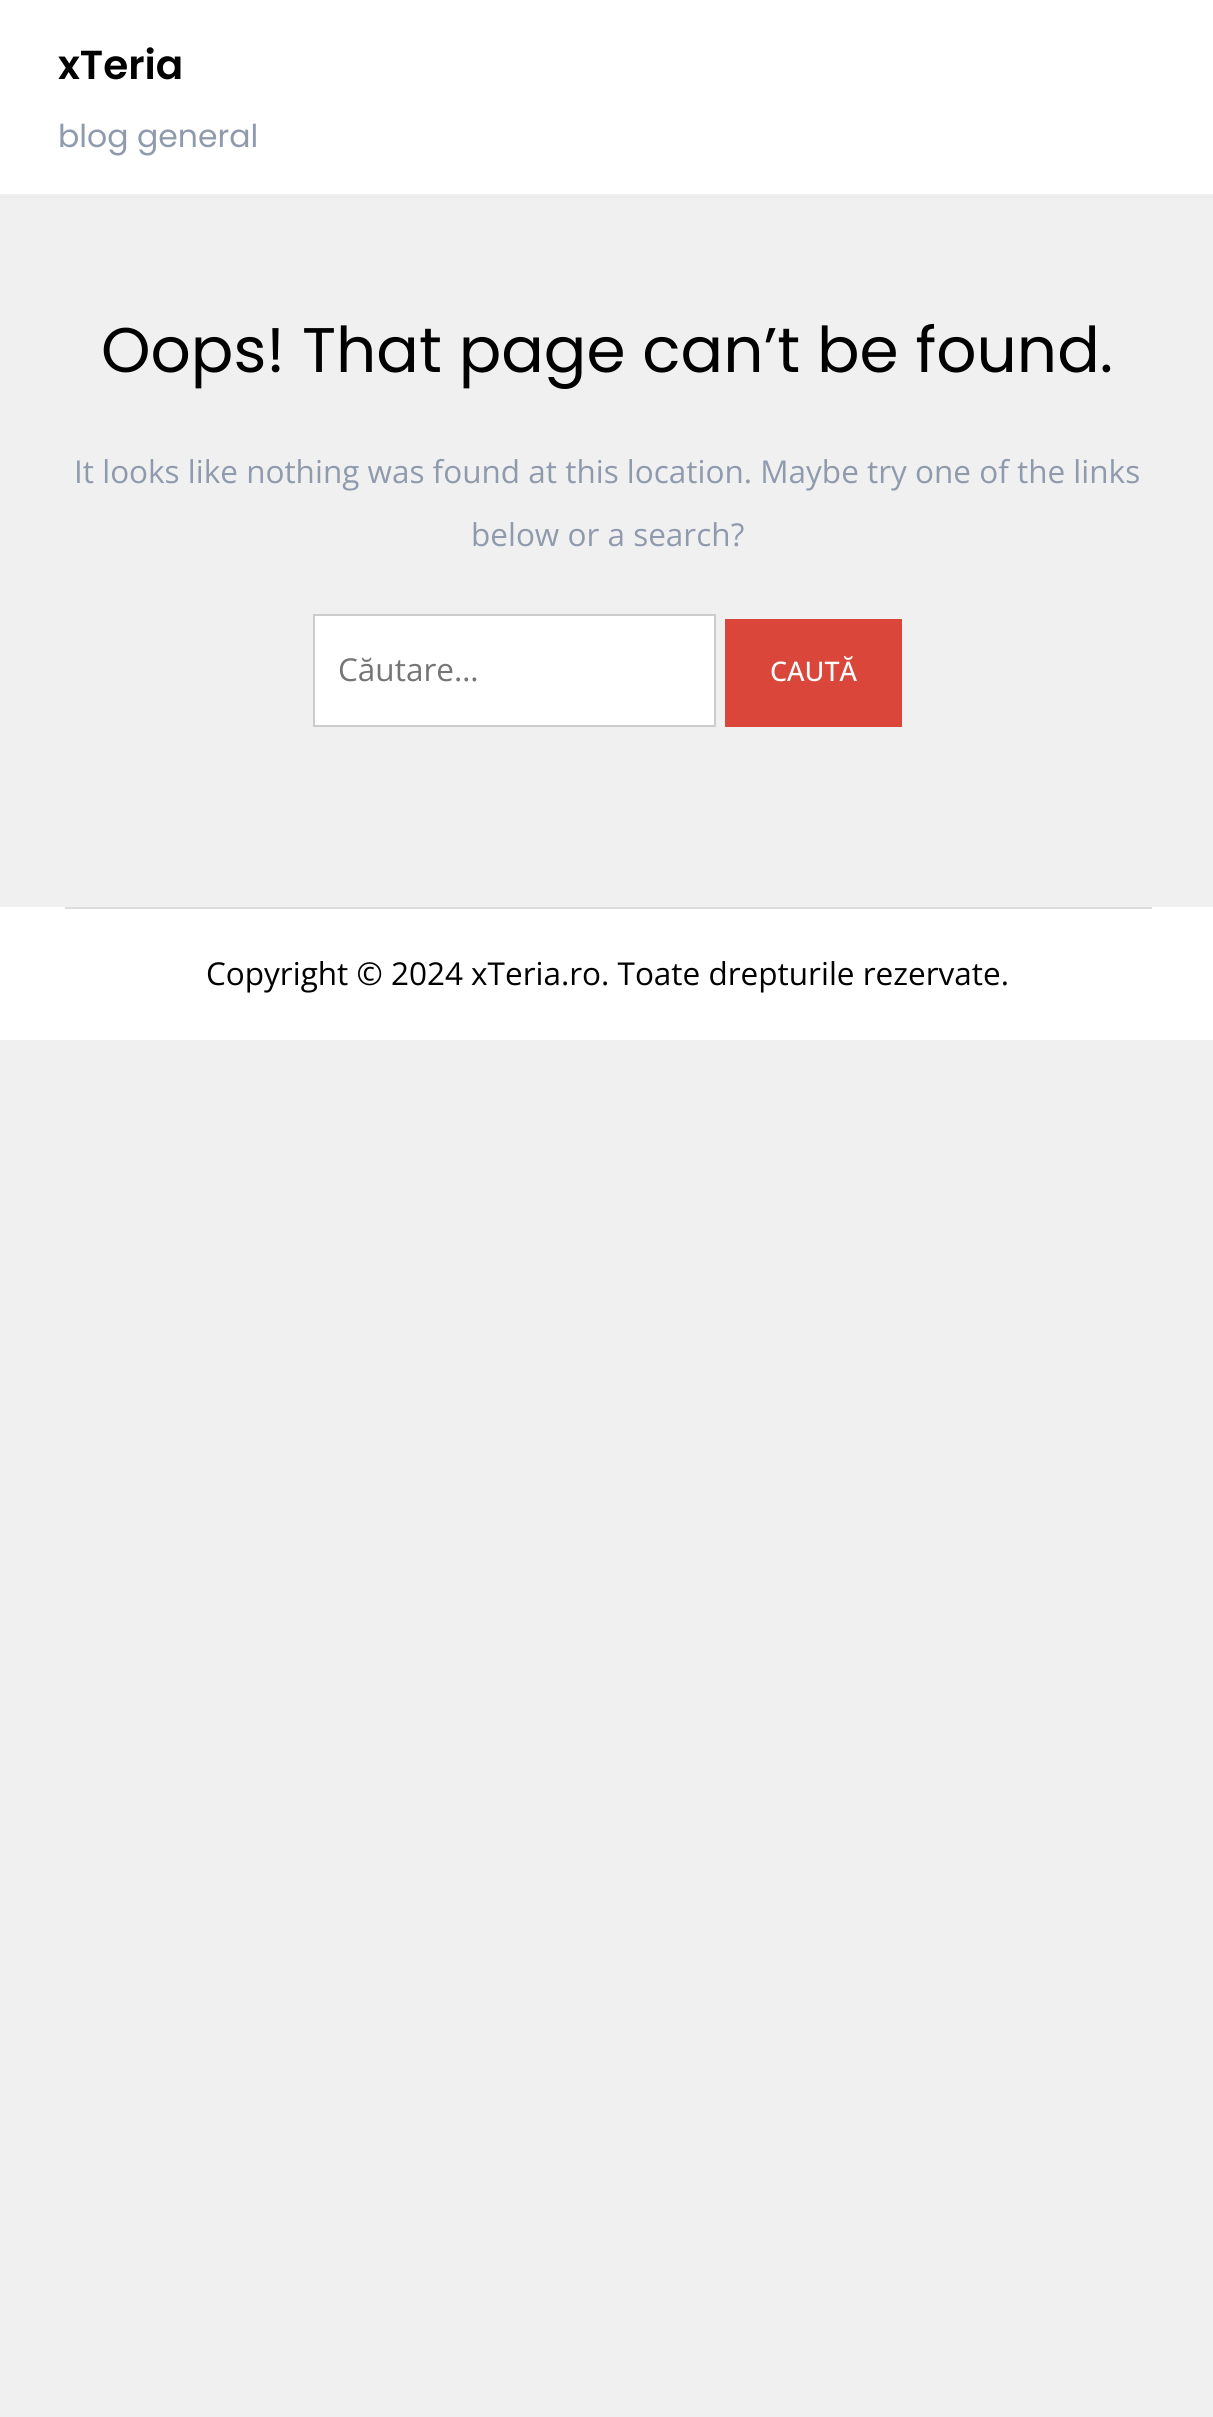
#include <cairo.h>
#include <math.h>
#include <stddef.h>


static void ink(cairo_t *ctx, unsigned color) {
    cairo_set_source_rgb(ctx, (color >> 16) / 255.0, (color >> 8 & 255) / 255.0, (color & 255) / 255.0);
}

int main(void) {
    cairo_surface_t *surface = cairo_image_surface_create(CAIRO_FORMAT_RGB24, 1213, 2417);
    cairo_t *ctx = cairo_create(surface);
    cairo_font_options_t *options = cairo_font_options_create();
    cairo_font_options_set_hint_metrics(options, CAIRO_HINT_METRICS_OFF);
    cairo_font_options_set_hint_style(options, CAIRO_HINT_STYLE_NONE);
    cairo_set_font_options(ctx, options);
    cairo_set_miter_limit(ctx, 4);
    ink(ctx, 0xF0F0F0);
    cairo_paint(ctx);
    ink(ctx, 0xECECEC);
    cairo_rectangle(ctx, 0, 196, 1213, 2);
    cairo_fill(ctx);
    ink(ctx, 0xFFFFFF);
    cairo_rectangle(ctx, 0, 0, 1213, 194);
    cairo_fill(ctx);
    cairo_select_font_face(ctx, "Poppins SemiBold", CAIRO_FONT_SLANT_NORMAL, CAIRO_FONT_WEIGHT_NORMAL);
    cairo_set_font_size(ctx, 40.5);
    ink(ctx, 0x000000);
    cairo_move_to(ctx, 58, 79);
    cairo_show_text(ctx, "xTeria");
    cairo_select_font_face(ctx, "Poppins", CAIRO_FONT_SLANT_NORMAL, CAIRO_FONT_WEIGHT_NORMAL);
    cairo_set_font_size(ctx, 31.5);
    ink(ctx, 0x8F9BAD);
    cairo_move_to(ctx, 58, 147);
    cairo_show_text(ctx, "blog general");
    cairo_set_font_size(ctx, 63);
    ink(ctx, 0x000000);
    cairo_move_to(ctx, 101, 372);
    cairo_show_text(ctx, "Oops! That page can’t be found.");
    cairo_select_font_face(ctx, "Open Sans", CAIRO_FONT_SLANT_NORMAL, CAIRO_FONT_WEIGHT_NORMAL);
    cairo_set_font_size(ctx, 31.5);
    ink(ctx, 0x8F9BAD);
    cairo_move_to(ctx, 74, 483);
    cairo_show_text(ctx, "It looks like nothing was found at this location. Maybe try one of the links");
    cairo_move_to(ctx, 471, 546);
    cairo_show_text(ctx, "below or a search?");
    ink(ctx, 0xFFFFFF);
    cairo_rectangle(ctx, 314, 615, 401, 111);
    cairo_fill_preserve(ctx);
    ink(ctx, 0xCCCCCC);
    cairo_stroke(ctx);
    ink(ctx, 0x757575);
    cairo_move_to(ctx, 338, 681);
    cairo_show_text(ctx, "Căutare…");
    ink(ctx, 0xDA463A);
    cairo_rectangle(ctx, 725, 619, 177, 108);
    cairo_fill(ctx);
    cairo_select_font_face(ctx, "Open Sans Medium", CAIRO_FONT_SLANT_NORMAL, CAIRO_FONT_WEIGHT_NORMAL);
    cairo_set_font_size(ctx, 27);
    ink(ctx, 0xFFFFFF);
    cairo_move_to(ctx, 770, 681);
    cairo_show_text(ctx, "CAUTĂ");
    cairo_rectangle(ctx, 0, 907, 1213, 133);
    cairo_fill(ctx);
    ink(ctx, 0xDDDDDD);
    cairo_rectangle(ctx, 65, 907, 1087, 2);
    cairo_fill(ctx);
    cairo_select_font_face(ctx, "Open Sans", CAIRO_FONT_SLANT_NORMAL, CAIRO_FONT_WEIGHT_NORMAL);
    cairo_set_font_size(ctx, 31.5);
    ink(ctx, 0x000000);
    cairo_move_to(ctx, 206, 985);
    cairo_show_text(ctx, "Copyright © 2024 xTeria.ro. Toate drepturile rezervate.");
    cairo_surface_write_to_png(surface, "image.png");
    cairo_font_options_destroy(options);
    cairo_destroy(ctx);
    cairo_surface_destroy(surface);
    return 0;
}
